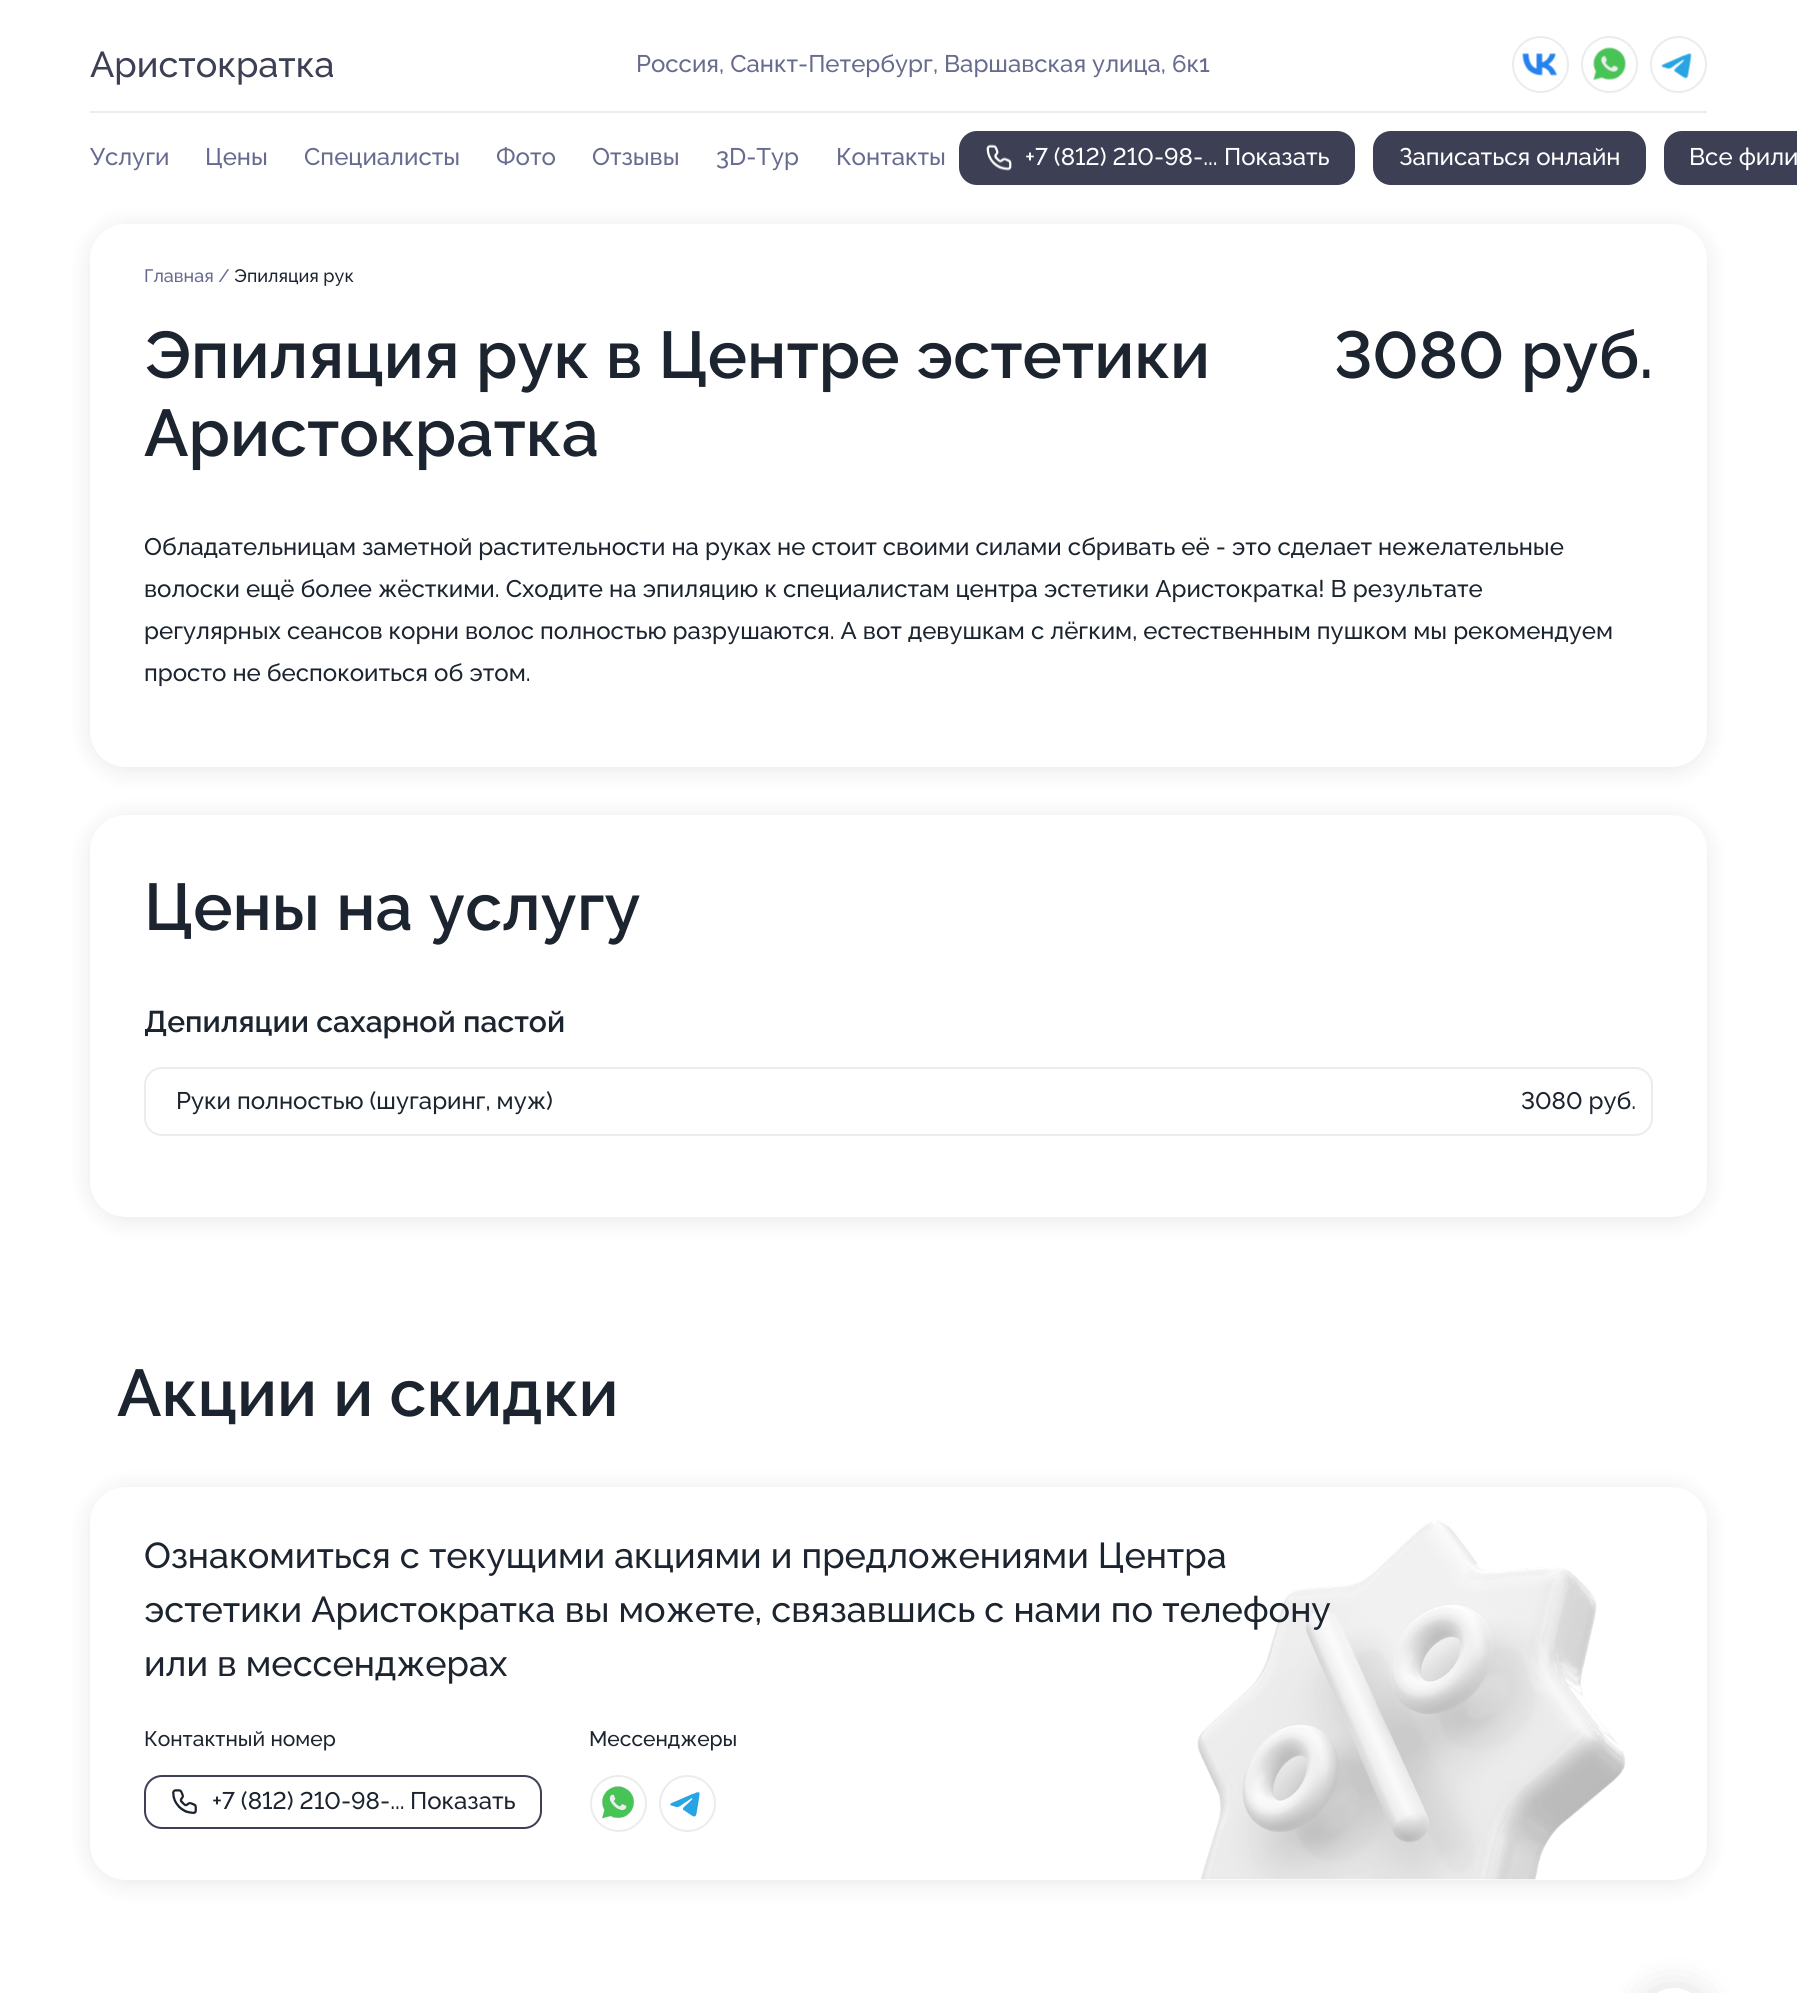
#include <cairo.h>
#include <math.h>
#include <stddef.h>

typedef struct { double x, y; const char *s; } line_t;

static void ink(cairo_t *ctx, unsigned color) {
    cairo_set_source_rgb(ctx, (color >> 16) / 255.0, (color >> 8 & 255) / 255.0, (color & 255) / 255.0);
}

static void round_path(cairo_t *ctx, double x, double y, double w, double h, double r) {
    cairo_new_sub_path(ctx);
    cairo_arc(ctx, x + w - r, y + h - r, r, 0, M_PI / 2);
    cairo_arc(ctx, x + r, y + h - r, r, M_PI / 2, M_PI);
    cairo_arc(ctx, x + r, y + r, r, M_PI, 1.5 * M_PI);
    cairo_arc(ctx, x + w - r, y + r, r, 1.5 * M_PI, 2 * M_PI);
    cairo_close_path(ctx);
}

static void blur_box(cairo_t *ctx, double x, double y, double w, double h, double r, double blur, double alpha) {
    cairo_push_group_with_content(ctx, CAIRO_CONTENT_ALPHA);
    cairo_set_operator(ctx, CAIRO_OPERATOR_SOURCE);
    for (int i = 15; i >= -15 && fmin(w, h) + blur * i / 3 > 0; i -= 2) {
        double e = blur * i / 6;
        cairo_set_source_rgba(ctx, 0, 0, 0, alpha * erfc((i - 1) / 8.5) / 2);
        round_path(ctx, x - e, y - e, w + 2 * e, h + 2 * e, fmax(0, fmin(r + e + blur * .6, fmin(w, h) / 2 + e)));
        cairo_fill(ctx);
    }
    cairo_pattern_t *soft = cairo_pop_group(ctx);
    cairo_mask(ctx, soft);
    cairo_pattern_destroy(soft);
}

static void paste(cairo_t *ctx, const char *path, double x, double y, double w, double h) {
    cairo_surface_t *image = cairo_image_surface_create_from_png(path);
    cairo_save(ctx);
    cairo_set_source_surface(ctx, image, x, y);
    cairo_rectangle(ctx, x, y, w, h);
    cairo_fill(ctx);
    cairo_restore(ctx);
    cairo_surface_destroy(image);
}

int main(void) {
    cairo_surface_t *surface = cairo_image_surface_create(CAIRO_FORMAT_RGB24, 1797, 1993);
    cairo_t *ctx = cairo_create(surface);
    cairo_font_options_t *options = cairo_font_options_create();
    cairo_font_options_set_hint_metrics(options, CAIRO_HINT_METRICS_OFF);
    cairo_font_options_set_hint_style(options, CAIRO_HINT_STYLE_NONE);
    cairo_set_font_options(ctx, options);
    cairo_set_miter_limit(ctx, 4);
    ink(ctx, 0xFFFFFF);
    cairo_paint(ctx);
    ink(ctx, 0xECECEE);
    cairo_rectangle(ctx, 90, 111, 1617, 2);
    cairo_fill(ctx);
    cairo_select_font_face(ctx, "Raleway Medium", CAIRO_FONT_SLANT_NORMAL, CAIRO_FONT_WEIGHT_NORMAL);
    cairo_set_font_size(ctx, 36);
    ink(ctx, 0x3D3F55);
    cairo_move_to(ctx, 90, 77);
    cairo_show_text(ctx, "Аристократка");
    cairo_set_font_size(ctx, 24);
    ink(ctx, 0x676B8F);
    cairo_move_to(ctx, 636, 72);
    cairo_show_text(ctx, "Россия, Санкт-Петербург, Варшавская улица, 6к1");
    cairo_new_path(ctx);
    cairo_arc(ctx, 1540.5, 64.5, 27.5, 0, 2 * M_PI);
    ink(ctx, 0xECECEE);
    cairo_stroke(ctx);
    paste(ctx, "media/1.png", 1522, 53, 36, 23);
    cairo_arc(ctx, 1609.5, 64.5, 27.5, 0, 2 * M_PI);
    cairo_stroke(ctx);
    paste(ctx, "media/2.png", 1593, 47, 33, 34);
    cairo_arc(ctx, 1678.5, 64.5, 27.5, 0, 2 * M_PI);
    cairo_stroke(ctx);
    paste(ctx, "media/3.png", 1661, 53, 31, 26);
    ink(ctx, 0x676B8F);
    {
        static const line_t items[] = {
            {90, 165, "Услуги"},
            {205, 165, "Цены"},
            {304, 165, "Специалисты"},
            {496, 165, "Фото"},
            {592, 165, "Отзывы"},
            {716, 165, "3D-Тур"},
            {836, 165, "Контакты"},
        };
        for (size_t i = 0; i < sizeof items / sizeof *items; i++) {
            cairo_move_to(ctx, items[i].x, items[i].y);
            cairo_show_text(ctx, items[i].s);
        }
    }
    ink(ctx, 0x3D3F55);
    round_path(ctx, 960, 132, 394, 52, 17);
    cairo_fill_preserve(ctx);
    cairo_stroke(ctx);
    paste(ctx, "media/4.png", 986, 144, 26, 27);
    cairo_select_font_face(ctx, "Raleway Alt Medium", CAIRO_FONT_SLANT_NORMAL, CAIRO_FONT_WEIGHT_NORMAL);
    ink(ctx, 0xFFFFFF);
    cairo_move_to(ctx, 1025, 165);
    cairo_show_text(ctx, "+7 (812) 210-98-...");
    cairo_select_font_face(ctx, "Raleway Medium", CAIRO_FONT_SLANT_NORMAL, CAIRO_FONT_WEIGHT_NORMAL);
    cairo_move_to(ctx, 1224, 165);
    cairo_show_text(ctx, "Показать");
    ink(ctx, 0x3D3F55);
    round_path(ctx, 1374, 132, 271, 52, 17);
    cairo_fill_preserve(ctx);
    cairo_stroke(ctx);
    ink(ctx, 0xFFFFFF);
    cairo_move_to(ctx, 1399, 165);
    cairo_show_text(ctx, "Записаться онлайн");
    ink(ctx, 0x3D3F55);
    round_path(ctx, 1665, 132, 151, 52, 17);
    cairo_fill_preserve(ctx);
    cairo_stroke(ctx);
    ink(ctx, 0xFFFFFF);
    cairo_move_to(ctx, 1689, 165);
    cairo_show_text(ctx, "Все фили");
    ink(ctx, 0x000000);
    blur_box(ctx, 90, 224, 1617, 543, 36, 12, 0.05);
    blur_box(ctx, 90, 230, 1617, 543, 36, 12, 0.05);
    ink(ctx, 0xFFFFFF);
    round_path(ctx, 90, 224, 1617, 543, 36);
    cairo_fill(ctx);
    cairo_set_font_size(ctx, 18);
    ink(ctx, 0x676B8F);
    cairo_move_to(ctx, 144, 282);
    cairo_show_text(ctx, "Главная /");
    ink(ctx, 0x1C242F);
    cairo_move_to(ctx, 234, 282);
    cairo_show_text(ctx, "Эпиляция рук");
    cairo_select_font_face(ctx, "Raleway SemiBold", CAIRO_FONT_SLANT_NORMAL, CAIRO_FONT_WEIGHT_NORMAL);
    cairo_set_font_size(ctx, 66);
    cairo_move_to(ctx, 144, 378);
    cairo_show_text(ctx, "Эпиляция рук в Центре эстетики");
    cairo_move_to(ctx, 144, 456);
    cairo_show_text(ctx, "Аристократка");
    cairo_select_font_face(ctx, "Raleway Alt SemiBold", CAIRO_FONT_SLANT_NORMAL, CAIRO_FONT_WEIGHT_NORMAL);
    cairo_move_to(ctx, 1334, 378);
    cairo_show_text(ctx, "3080");
    cairo_select_font_face(ctx, "Raleway SemiBold", CAIRO_FONT_SLANT_NORMAL, CAIRO_FONT_WEIGHT_NORMAL);
    cairo_move_to(ctx, 1521, 378);
    cairo_show_text(ctx, "руб.");
    cairo_select_font_face(ctx, "Raleway Medium", CAIRO_FONT_SLANT_NORMAL, CAIRO_FONT_WEIGHT_NORMAL);
    cairo_set_font_size(ctx, 24);
    {
        static const line_t items[] = {
            {144, 555, "Обладательницам заметной растительности на руках не стоит своими силами сбривать её - это сделает нежелательные"},
            {144, 597, "волоски ещё более жёсткими. Сходите на эпиляцию к специалистам центра эстетики Аристократка! В результате"},
            {144, 639, "регулярных сеансов корни волос полностью разрушаются. А вот девушкам с лёгким, естественным пушком мы рекомендуем"},
            {144, 681, "просто не беспокоиться об этом."},
        };
        for (size_t i = 0; i < sizeof items / sizeof *items; i++) {
            cairo_move_to(ctx, items[i].x, items[i].y);
            cairo_show_text(ctx, items[i].s);
        }
    }
    ink(ctx, 0x000000);
    blur_box(ctx, 90, 815, 1617, 402, 36, 12, 0.05);
    blur_box(ctx, 90, 821, 1617, 402, 36, 12, 0.05);
    ink(ctx, 0xFFFFFF);
    round_path(ctx, 90, 815, 1617, 402, 36);
    cairo_fill(ctx);
    cairo_select_font_face(ctx, "Raleway SemiBold", CAIRO_FONT_SLANT_NORMAL, CAIRO_FONT_WEIGHT_NORMAL);
    cairo_set_font_size(ctx, 66);
    ink(ctx, 0x1C242F);
    cairo_move_to(ctx, 144, 930);
    cairo_show_text(ctx, "Цены на услугу");
    cairo_set_font_size(ctx, 30);
    cairo_move_to(ctx, 144, 1032);
    cairo_show_text(ctx, "Депиляции сахарной пастой");
    round_path(ctx, 145, 1068, 1507, 67, 17);
    ink(ctx, 0xECECEE);
    cairo_stroke(ctx);
    cairo_select_font_face(ctx, "Raleway Medium", CAIRO_FONT_SLANT_NORMAL, CAIRO_FONT_WEIGHT_NORMAL);
    cairo_set_font_size(ctx, 24);
    ink(ctx, 0x1C242F);
    cairo_move_to(ctx, 176, 1109);
    cairo_show_text(ctx, "Руки полностью (шугаринг, муж)");
    cairo_select_font_face(ctx, "Raleway Alt Medium", CAIRO_FONT_SLANT_NORMAL, CAIRO_FONT_WEIGHT_NORMAL);
    cairo_move_to(ctx, 1521, 1109);
    cairo_show_text(ctx, "3080 руб.");
    cairo_select_font_face(ctx, "Raleway SemiBold", CAIRO_FONT_SLANT_NORMAL, CAIRO_FONT_WEIGHT_NORMAL);
    cairo_set_font_size(ctx, 66);
    cairo_move_to(ctx, 117, 1416);
    cairo_show_text(ctx, "Акции и скидки");
    ink(ctx, 0x000000);
    blur_box(ctx, 90, 1487, 1617, 393, 36, 12, 0.05);
    blur_box(ctx, 90, 1493, 1617, 393, 36, 12, 0.05);
    ink(ctx, 0xFFFFFF);
    round_path(ctx, 90, 1487, 1617, 393, 36);
    cairo_fill(ctx);
    paste(ctx, "media/5.png", 1197, 1520, 429, 360);
    cairo_select_font_face(ctx, "Raleway Medium", CAIRO_FONT_SLANT_NORMAL, CAIRO_FONT_WEIGHT_NORMAL);
    cairo_set_font_size(ctx, 36);
    ink(ctx, 0x1C242F);
    {
        static const line_t items[] = {
            {144, 1568, "Ознакомиться с текущими акциями и предложениями Центра"},
            {144, 1622, "эстетики Аристократка вы можете, связавшись с нами по телефону"},
            {144, 1676, "или в мессенджерах"},
        };
        for (size_t i = 0; i < sizeof items / sizeof *items; i++) {
            cairo_move_to(ctx, items[i].x, items[i].y);
            cairo_show_text(ctx, items[i].s);
        }
    }
    cairo_set_font_size(ctx, 21);
    cairo_move_to(ctx, 144, 1746);
    cairo_show_text(ctx, "Контактный номер");
    round_path(ctx, 145, 1776, 396, 52, 17);
    ink(ctx, 0x3D3F55);
    cairo_stroke(ctx);
    paste(ctx, "media/6.png", 172, 1789, 25, 25);
    cairo_select_font_face(ctx, "Raleway Alt Medium", CAIRO_FONT_SLANT_NORMAL, CAIRO_FONT_WEIGHT_NORMAL);
    cairo_set_font_size(ctx, 24);
    ink(ctx, 0x1C242F);
    cairo_move_to(ctx, 212, 1809);
    cairo_show_text(ctx, "+7 (812) 210-98-...");
    cairo_select_font_face(ctx, "Raleway Medium", CAIRO_FONT_SLANT_NORMAL, CAIRO_FONT_WEIGHT_NORMAL);
    cairo_move_to(ctx, 410, 1809);
    cairo_show_text(ctx, "Показать");
    cairo_set_font_size(ctx, 21);
    cairo_move_to(ctx, 589, 1746);
    cairo_show_text(ctx, "Мессенджеры");
    cairo_new_path(ctx);
    cairo_arc(ctx, 618.5, 1803.5, 27.5, 0, 2 * M_PI);
    ink(ctx, 0xECECEE);
    cairo_stroke(ctx);
    paste(ctx, "media/7.png", 602, 1786, 33, 33);
    cairo_arc(ctx, 687.5, 1803.5, 27.5, 0, 2 * M_PI);
    cairo_stroke(ctx);
    paste(ctx, "media/8.png", 670, 1792, 30, 25);
    cairo_save(ctx);
    cairo_set_fill_rule(ctx, CAIRO_FILL_RULE_EVEN_ODD);
    cairo_new_path(ctx);
    cairo_move_to(ctx, 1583, 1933);
    cairo_line_to(ctx, 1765, 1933);
    cairo_line_to(ctx, 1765, 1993);
    cairo_line_to(ctx, 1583, 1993);
    cairo_close_path(ctx);
    cairo_move_to(ctx, 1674, 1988);
    cairo_curve_to(ctx, 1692, 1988, 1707, 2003, 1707, 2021);
    cairo_curve_to(ctx, 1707, 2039, 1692, 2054, 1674, 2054);
    cairo_curve_to(ctx, 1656, 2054, 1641, 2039, 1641, 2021);
    cairo_curve_to(ctx, 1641, 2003, 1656, 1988, 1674, 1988);
    cairo_close_path(ctx);
    cairo_clip(ctx);
    ink(ctx, 0x000000);
    blur_box(ctx, 1641, 1991, 66, 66, 33, 19, 0.15);
    cairo_restore(ctx);
    cairo_surface_write_to_png(surface, "image.png");
    cairo_font_options_destroy(options);
    cairo_destroy(ctx);
    cairo_surface_destroy(surface);
    return 0;
}
